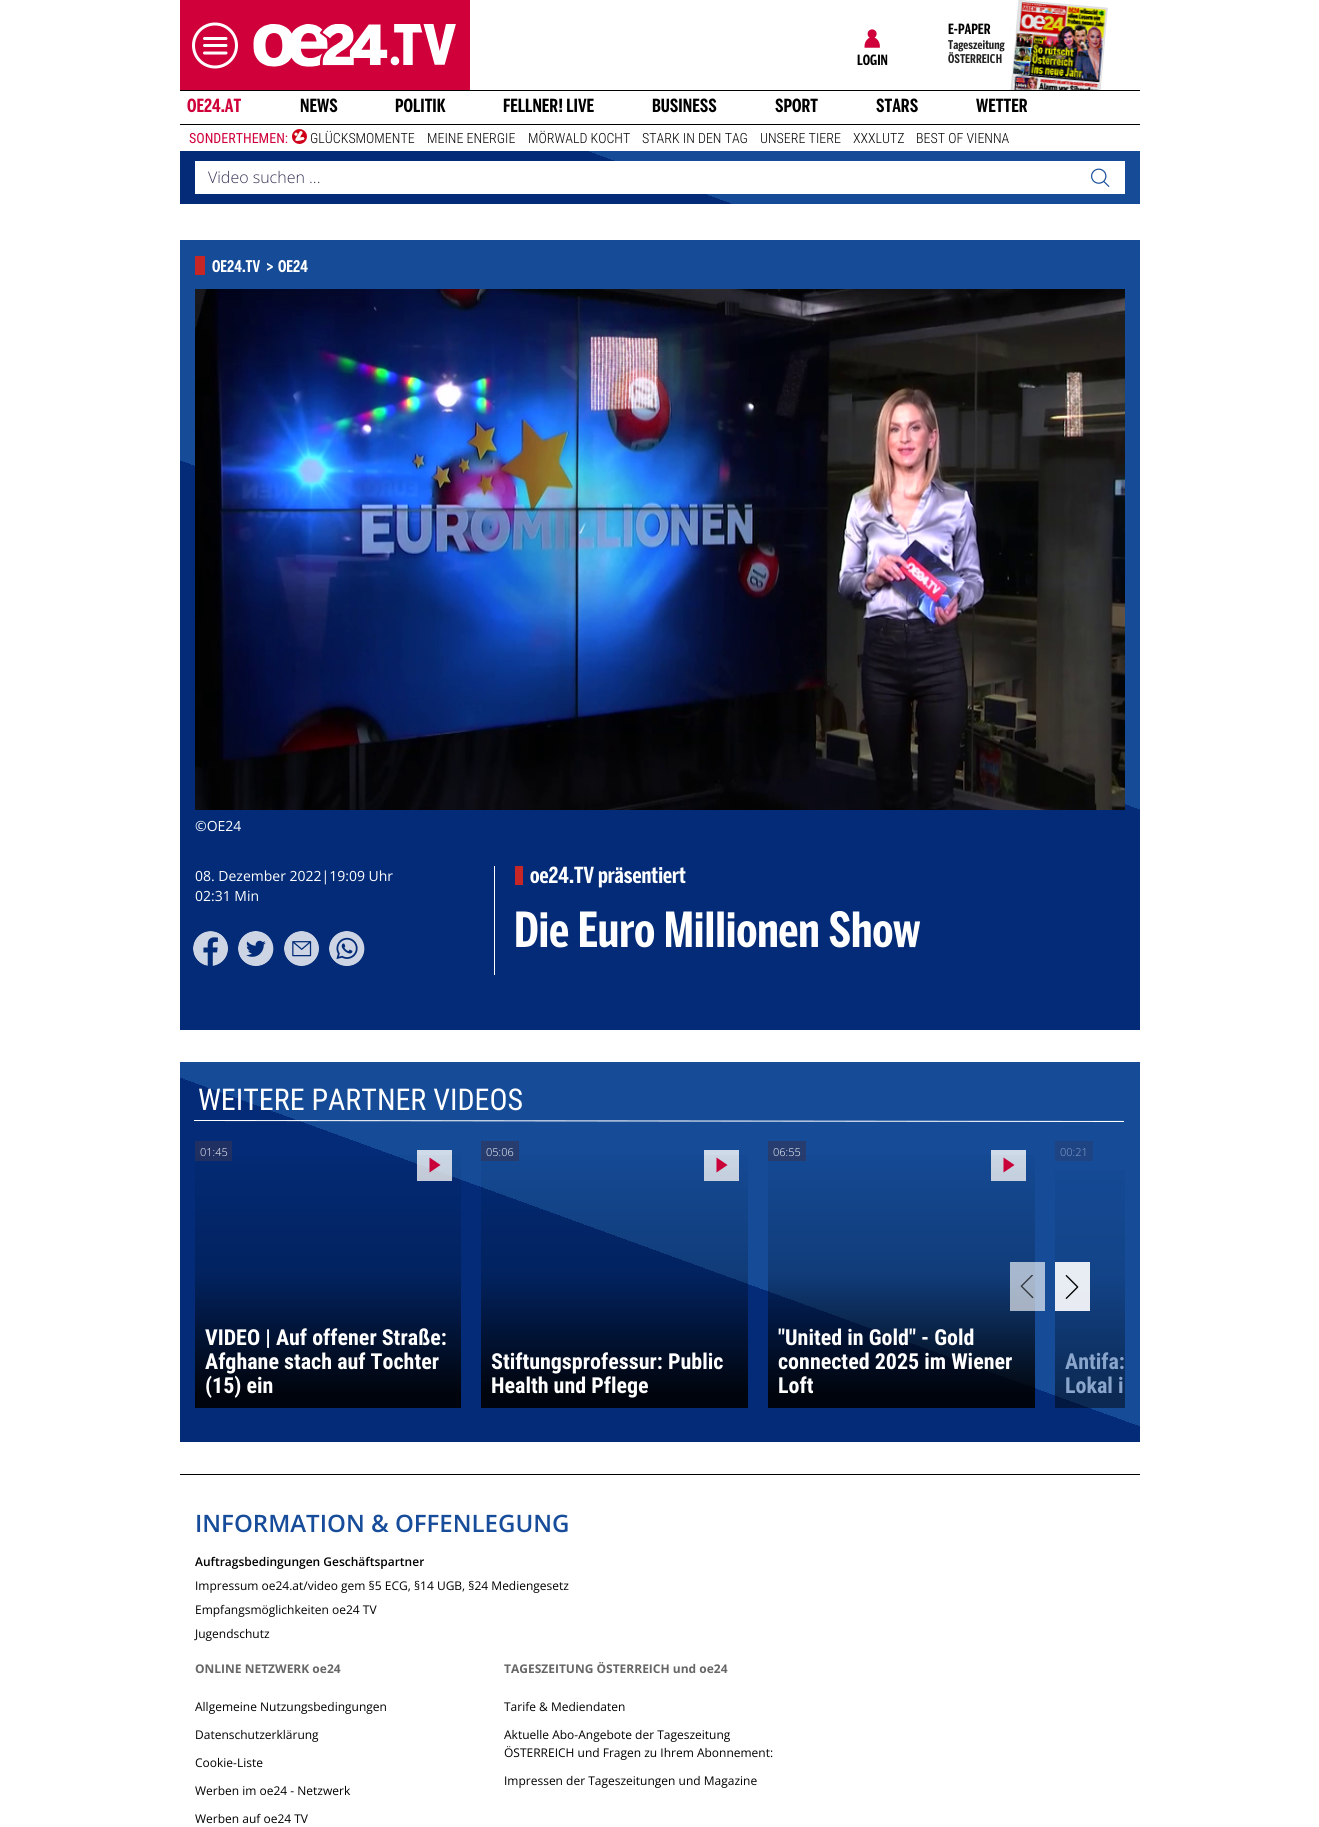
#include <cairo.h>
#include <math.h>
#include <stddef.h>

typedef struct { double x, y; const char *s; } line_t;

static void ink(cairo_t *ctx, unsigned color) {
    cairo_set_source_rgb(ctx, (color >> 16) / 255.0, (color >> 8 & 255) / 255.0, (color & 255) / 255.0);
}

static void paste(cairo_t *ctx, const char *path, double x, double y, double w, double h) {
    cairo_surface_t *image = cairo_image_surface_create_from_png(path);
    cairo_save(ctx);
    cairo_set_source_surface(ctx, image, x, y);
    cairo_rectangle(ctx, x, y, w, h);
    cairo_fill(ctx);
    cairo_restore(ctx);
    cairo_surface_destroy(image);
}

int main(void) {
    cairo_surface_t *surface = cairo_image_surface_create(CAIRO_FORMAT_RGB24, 1319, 1827);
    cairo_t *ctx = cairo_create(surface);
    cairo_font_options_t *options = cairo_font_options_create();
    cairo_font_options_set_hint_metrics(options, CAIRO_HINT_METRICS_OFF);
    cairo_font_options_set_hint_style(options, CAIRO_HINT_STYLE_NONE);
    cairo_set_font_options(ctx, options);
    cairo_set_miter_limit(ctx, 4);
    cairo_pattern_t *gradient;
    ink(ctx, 0xFFFFFF);
    cairo_paint(ctx);
    ink(ctx, 0xD0013A);
    cairo_rectangle(ctx, 180, 0, 290, 90);
    cairo_fill(ctx);
    cairo_arc(ctx, 215, 45.5, 21.5, 0, 2 * M_PI);
    ink(ctx, 0xFFFFFF);
    cairo_set_line_width(ctx, 3);
    cairo_stroke(ctx);
    cairo_new_path(ctx);
    cairo_move_to(ctx, 204.5, 38.5);
    cairo_line_to(ctx, 226, 38.5);
    cairo_move_to(ctx, 204.5, 45.5);
    cairo_line_to(ctx, 226, 45.5);
    cairo_move_to(ctx, 204.5, 53);
    cairo_line_to(ctx, 226, 53);
    cairo_set_line_cap(ctx, CAIRO_LINE_CAP_ROUND);
    cairo_stroke(ctx);
    paste(ctx, "media/1.png", 253, 24, 203, 43);
    paste(ctx, "media/2.png", 864, 29, 16, 19);
    cairo_select_font_face(ctx, "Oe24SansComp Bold", CAIRO_FONT_SLANT_NORMAL, CAIRO_FONT_WEIGHT_BOLD);
    cairo_set_font_size(ctx, 14);
    ink(ctx, 0x000000);
    cairo_move_to(ctx, 857, 65);
    cairo_show_text(ctx, "LOGIN");
    cairo_move_to(ctx, 948, 34);
    cairo_show_text(ctx, "E-PAPER");
    cairo_set_font_size(ctx, 12);
    ink(ctx, 0x242424);
    cairo_move_to(ctx, 948, 49);
    cairo_show_text(ctx, "Tageszeitung");
    cairo_move_to(ctx, 948, 63);
    cairo_show_text(ctx, "ÖSTERREICH");
    paste(ctx, "media/3.png", 1010, 0, 98, 90);
    ink(ctx, 0x000000);
    cairo_rectangle(ctx, 180, 90, 960, 1);
    cairo_fill(ctx);
    cairo_rectangle(ctx, 180, 124, 960, 1);
    cairo_fill(ctx);
    cairo_set_font_size(ctx, 18);
    ink(ctx, 0xD0013A);
    cairo_move_to(ctx, 187, 112);
    cairo_show_text(ctx, "OE24.AT");
    ink(ctx, 0x000000);
    {
        static const line_t items[] = {
            {300, 112, "NEWS"},
            {395, 112, "POLITIK"},
            {503, 112, "FELLNER! LIVE"},
            {652, 112, "BUSINESS"},
            {775, 112, "SPORT"},
            {876, 112, "STARS"},
            {976, 112, "WETTER"},
        };
        for (size_t i = 0; i < sizeof items / sizeof *items; i++) {
            cairo_move_to(ctx, items[i].x, items[i].y);
            cairo_show_text(ctx, items[i].s);
        }
    }
    cairo_select_font_face(ctx, "Roboto Condensed", CAIRO_FONT_SLANT_NORMAL, CAIRO_FONT_WEIGHT_NORMAL);
    cairo_set_font_size(ctx, 14);
    ink(ctx, 0xD0013A);
    cairo_move_to(ctx, 189, 143);
    cairo_show_text(ctx, "SONDERTHEMEN:");
    paste(ctx, "media/4.png", 292, 129, 15, 15);
    cairo_select_font_face(ctx, "Roboto Condensed Light", CAIRO_FONT_SLANT_NORMAL, CAIRO_FONT_WEIGHT_NORMAL);
    ink(ctx, 0x000000);
    {
        static const line_t items[] = {
            {310, 143, "GLÜCKSMOMENTE"},
            {427, 143, "MEINE ENERGIE"},
            {528, 143, "MÖRWALD KOCHT"},
            {642, 143, "STARK IN DEN TAG"},
            {760, 143, "UNSERE TIERE"},
            {853, 143, "XXXLUTZ"},
            {916, 143, "BEST OF VIENNA"},
        };
        for (size_t i = 0; i < sizeof items / sizeof *items; i++) {
            cairo_move_to(ctx, items[i].x, items[i].y);
            cairo_show_text(ctx, items[i].s);
        }
    }
    gradient = cairo_pattern_create_linear(725, -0.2, 595, 355);
    cairo_pattern_add_color_stop_rgba(gradient, 0, 0.082, 0.294, 0.592, 1);
    cairo_pattern_add_color_stop_rgba(gradient, 0.5, 0.082, 0.294, 0.592, 1);
    cairo_pattern_add_color_stop_rgba(gradient, 0.5, 0.012, 0.169, 0.467, 1);
    cairo_pattern_add_color_stop_rgba(gradient, 1, 0.012, 0.169, 0.467, 1);
    cairo_set_source(ctx, gradient);
    cairo_pattern_destroy(gradient);
    cairo_rectangle(ctx, 180, 151, 960, 53);
    cairo_fill(ctx);
    ink(ctx, 0xFFFFFF);
    cairo_rectangle(ctx, 195, 161, 930, 33);
    cairo_fill(ctx);
    cairo_select_font_face(ctx, "Open Sans Light", CAIRO_FONT_SLANT_NORMAL, CAIRO_FONT_WEIGHT_NORMAL);
    cairo_set_font_size(ctx, 16);
    ink(ctx, 0x343455);
    cairo_move_to(ctx, 208, 183);
    cairo_show_text(ctx, "Video suchen ...");
    paste(ctx, "media/5.png", 1091, 168, 19, 19);
    gradient = cairo_pattern_create_linear(843, 132, 477, 1138);
    cairo_pattern_add_color_stop_rgba(gradient, 0, 0.082, 0.294, 0.592, 1);
    cairo_pattern_add_color_stop_rgba(gradient, 0.5, 0.082, 0.294, 0.592, 1);
    cairo_pattern_add_color_stop_rgba(gradient, 0.5, 0.012, 0.169, 0.467, 1);
    cairo_pattern_add_color_stop_rgba(gradient, 1, 0.012, 0.169, 0.467, 1);
    cairo_set_source(ctx, gradient);
    cairo_pattern_destroy(gradient);
    cairo_rectangle(ctx, 180, 240, 960, 790);
    cairo_fill(ctx);
    ink(ctx, 0xC72626);
    cairo_rectangle(ctx, 195, 256, 10, 19);
    cairo_fill(ctx);
    cairo_select_font_face(ctx, "Oe24SansComp Bold", CAIRO_FONT_SLANT_NORMAL, CAIRO_FONT_WEIGHT_BOLD);
    ink(ctx, 0xFFFFFF);
    cairo_move_to(ctx, 212, 272);
    cairo_show_text(ctx, "OE24.TV");
    cairo_move_to(ctx, 266, 272);
    cairo_show_text(ctx, ">");
    cairo_save(ctx);
    cairo_new_path(ctx);
    cairo_move_to(ctx, 278, 255);
    cairo_line_to(ctx, 308, 255);
    cairo_line_to(ctx, 308, 279);
    cairo_line_to(ctx, 278, 279);
    cairo_close_path(ctx);
    cairo_clip(ctx);
    cairo_move_to(ctx, 278, 272);
    cairo_show_text(ctx, "OE24");
    cairo_restore(ctx);
    paste(ctx, "media/6.png", 195, 289, 930, 521);
    cairo_select_font_face(ctx, "Open Sans", CAIRO_FONT_SLANT_NORMAL, CAIRO_FONT_WEIGHT_NORMAL);
    cairo_set_font_size(ctx, 14);
    cairo_move_to(ctx, 195, 831);
    cairo_show_text(ctx, "©OE24");
    cairo_rectangle(ctx, 494, 866, 1, 109);
    cairo_fill(ctx);
    cairo_move_to(ctx, 195, 881);
    cairo_show_text(ctx, "08. Dezember 2022|19:09 Uhr");
    cairo_move_to(ctx, 195, 901);
    cairo_show_text(ctx, "02:31 Min");
    paste(ctx, "media/7.png", 193, 931, 35, 35);
    paste(ctx, "media/8.png", 238, 931, 36, 35);
    paste(ctx, "media/9.png", 284, 931, 35, 35);
    paste(ctx, "media/10.png", 329, 931, 36, 35);
    ink(ctx, 0xC72626);
    cairo_rectangle(ctx, 515, 866, 8, 19);
    cairo_fill(ctx);
    cairo_select_font_face(ctx, "Oe24SansComp Bold", CAIRO_FONT_SLANT_NORMAL, CAIRO_FONT_WEIGHT_BOLD);
    cairo_set_font_size(ctx, 22);
    ink(ctx, 0xFFFFFF);
    cairo_move_to(ctx, 530, 883);
    cairo_show_text(ctx, "oe24.TV präsentiert");
    cairo_set_font_size(ctx, 48);
    cairo_move_to(ctx, 514, 947);
    cairo_show_text(ctx, "Die Euro Millionen Show");
    gradient = cairo_pattern_create_linear(777, 930, 543, 1574);
    cairo_pattern_add_color_stop_rgba(gradient, 0, 0.082, 0.294, 0.592, 1);
    cairo_pattern_add_color_stop_rgba(gradient, 0.5, 0.082, 0.294, 0.592, 1);
    cairo_pattern_add_color_stop_rgba(gradient, 0.5, 0.012, 0.169, 0.467, 1);
    cairo_pattern_add_color_stop_rgba(gradient, 1, 0.012, 0.169, 0.467, 1);
    cairo_set_source(ctx, gradient);
    cairo_pattern_destroy(gradient);
    cairo_rectangle(ctx, 180, 1062, 960, 380);
    cairo_fill(ctx);
    gradient = cairo_pattern_create_linear(777, 930, 543, 1574);
    cairo_pattern_add_color_stop_rgba(gradient, 0, 0.816, 0.859, 0.918, 1);
    cairo_pattern_add_color_stop_rgba(gradient, 0.5, 0.816, 0.859, 0.918, 1);
    cairo_pattern_add_color_stop_rgba(gradient, 0.5, 0.804, 0.835, 0.894, 1);
    cairo_pattern_add_color_stop_rgba(gradient, 1, 0.804, 0.835, 0.894, 1);
    cairo_set_source(ctx, gradient);
    cairo_pattern_destroy(gradient);
    cairo_rectangle(ctx, 417, 1150, 35, 31);
    cairo_fill(ctx);
    ink(ctx, 0xFFFFFF);
    cairo_new_path(ctx);
    cairo_move_to(ctx, 194, 1120);
    cairo_line_to(ctx, 1124, 1121);
    cairo_line_to(ctx, 1124, 1122);
    cairo_line_to(ctx, 194, 1121);
    cairo_close_path(ctx);
    cairo_fill(ctx);
    cairo_select_font_face(ctx, "Roboto Condensed", CAIRO_FONT_SLANT_NORMAL, CAIRO_FONT_WEIGHT_NORMAL);
    cairo_set_font_size(ctx, 30);
    cairo_move_to(ctx, 198, 1110);
    cairo_show_text(ctx, "WEITERE PARTNER VIDEOS");
    ink(ctx, 0x203063);
    cairo_rectangle(ctx, 195, 1141, 37, 20);
    cairo_fill(ctx);
    cairo_select_font_face(ctx, "Open Sans Light", CAIRO_FONT_SLANT_NORMAL, CAIRO_FONT_WEIGHT_NORMAL);
    cairo_set_font_size(ctx, 11);
    ink(ctx, 0xFFFFFF);
    cairo_move_to(ctx, 200, 1156);
    cairo_show_text(ctx, "01:45");
    ink(ctx, 0xD0013A);
    cairo_set_fill_rule(ctx, CAIRO_FILL_RULE_EVEN_ODD);
    cairo_new_path(ctx);
    cairo_move_to(ctx, 440.5, 1165);
    cairo_line_to(ctx, 429.5, 1172.5);
    cairo_line_to(ctx, 429.5, 1157.5);
    cairo_close_path(ctx);
    cairo_fill(ctx);
    gradient = cairo_pattern_create_linear(328, 1141, 328, 1408);
    cairo_pattern_add_color_stop_rgba(gradient, 0, 0, 0, 0, 0);
    cairo_pattern_add_color_stop_rgba(gradient, 0.5, 0, 0, 0, 0.2);
    cairo_pattern_add_color_stop_rgba(gradient, 0.95, 0, 0, 0, 0.9);
    cairo_set_source(ctx, gradient);
    cairo_pattern_destroy(gradient);
    cairo_rectangle(ctx, 195, 1155, 266, 253);
    cairo_fill(ctx);
    cairo_select_font_face(ctx, "Roboto Condensed", CAIRO_FONT_SLANT_NORMAL, CAIRO_FONT_WEIGHT_BOLD);
    cairo_set_font_size(ctx, 22);
    ink(ctx, 0xFFFFFF);
    {
        static const line_t items[] = {
            {205, 1345, "VIDEO | Auf offener Straße:"},
            {205, 1369, "Afghane stach auf Tochter"},
            {205, 1393, "(15) ein"},
        };
        for (size_t i = 0; i < sizeof items / sizeof *items; i++) {
            cairo_move_to(ctx, items[i].x, items[i].y);
            cairo_show_text(ctx, items[i].s);
        }
    }
    ink(ctx, 0x283D6F);
    cairo_rectangle(ctx, 481, 1141, 38, 20);
    cairo_fill(ctx);
    cairo_select_font_face(ctx, "Open Sans Light", CAIRO_FONT_SLANT_NORMAL, CAIRO_FONT_WEIGHT_NORMAL);
    cairo_set_font_size(ctx, 11);
    ink(ctx, 0xFFFFFF);
    cairo_move_to(ctx, 486, 1156);
    cairo_show_text(ctx, "05:06");
    ink(ctx, 0xD0DBEA);
    cairo_rectangle(ctx, 704, 1150, 35, 31);
    cairo_fill(ctx);
    ink(ctx, 0xD0013A);
    cairo_new_path(ctx);
    cairo_move_to(ctx, 727.5, 1165);
    cairo_line_to(ctx, 716.5, 1172.5);
    cairo_line_to(ctx, 716.5, 1157.5);
    cairo_close_path(ctx);
    cairo_fill(ctx);
    gradient = cairo_pattern_create_linear(615, 1141, 615, 1408);
    cairo_pattern_add_color_stop_rgba(gradient, 0, 0, 0, 0, 0);
    cairo_pattern_add_color_stop_rgba(gradient, 0.5, 0, 0, 0, 0.2);
    cairo_pattern_add_color_stop_rgba(gradient, 0.95, 0, 0, 0, 0.9);
    cairo_set_source(ctx, gradient);
    cairo_pattern_destroy(gradient);
    cairo_rectangle(ctx, 481, 1155, 267, 253);
    cairo_fill(ctx);
    cairo_select_font_face(ctx, "Roboto Condensed", CAIRO_FONT_SLANT_NORMAL, CAIRO_FONT_WEIGHT_BOLD);
    cairo_set_font_size(ctx, 22);
    ink(ctx, 0xFFFFFF);
    cairo_move_to(ctx, 491, 1369);
    cairo_show_text(ctx, "Stiftungsprofessur: Public");
    cairo_move_to(ctx, 491, 1393);
    cairo_show_text(ctx, "Health und Pflege");
    ink(ctx, 0x283D6F);
    cairo_rectangle(ctx, 768, 1141, 38, 20);
    cairo_fill(ctx);
    cairo_select_font_face(ctx, "Open Sans Light", CAIRO_FONT_SLANT_NORMAL, CAIRO_FONT_WEIGHT_NORMAL);
    cairo_set_font_size(ctx, 11);
    ink(ctx, 0xFFFFFF);
    cairo_move_to(ctx, 773, 1156);
    cairo_show_text(ctx, "06:55");
    ink(ctx, 0xD0DBEA);
    cairo_rectangle(ctx, 991, 1150, 35, 31);
    cairo_fill(ctx);
    ink(ctx, 0xD0013A);
    cairo_new_path(ctx);
    cairo_move_to(ctx, 1014.5, 1165);
    cairo_line_to(ctx, 1003.5, 1172.5);
    cairo_line_to(ctx, 1003.5, 1157.5);
    cairo_close_path(ctx);
    cairo_fill(ctx);
    gradient = cairo_pattern_create_linear(902, 1141, 902, 1408);
    cairo_pattern_add_color_stop_rgba(gradient, 0, 0, 0, 0, 0);
    cairo_pattern_add_color_stop_rgba(gradient, 0.5, 0, 0, 0, 0.2);
    cairo_pattern_add_color_stop_rgba(gradient, 0.95, 0, 0, 0, 0.9);
    cairo_set_source(ctx, gradient);
    cairo_pattern_destroy(gradient);
    cairo_rectangle(ctx, 768, 1155, 267, 253);
    cairo_fill(ctx);
    cairo_select_font_face(ctx, "Roboto Condensed", CAIRO_FONT_SLANT_NORMAL, CAIRO_FONT_WEIGHT_BOLD);
    cairo_set_font_size(ctx, 22);
    ink(ctx, 0xFFFFFF);
    {
        static const line_t items[] = {
            {778, 1345, "\"United in Gold\" - Gold"},
            {778, 1369, "connected 2025 im Wiener"},
            {778, 1393, "Loft"},
        };
        for (size_t i = 0; i < sizeof items / sizeof *items; i++) {
            cairo_move_to(ctx, items[i].x, items[i].y);
            cairo_show_text(ctx, items[i].s);
        }
    }
    ink(ctx, 0x1F4483);
    cairo_rectangle(ctx, 1055, 1141, 38, 20);
    cairo_fill(ctx);
    cairo_select_font_face(ctx, "Open Sans Light", CAIRO_FONT_SLANT_NORMAL, CAIRO_FONT_WEIGHT_NORMAL);
    cairo_set_font_size(ctx, 11);
    ink(ctx, 0x8AA5CB);
    cairo_move_to(ctx, 1060, 1156);
    cairo_show_text(ctx, "00:21");
    gradient = cairo_pattern_create_linear(1189, 1141, 1189, 1408);
    cairo_pattern_add_color_stop_rgba(gradient, 0, 0, 0, 0, 0);
    cairo_pattern_add_color_stop_rgba(gradient, 0.5, 0, 0, 0, 0.1);
    cairo_pattern_add_color_stop_rgba(gradient, 0.95, 0, 0, 0, 0.45);
    cairo_set_source(ctx, gradient);
    cairo_pattern_destroy(gradient);
    cairo_rectangle(ctx, 1055, 1170, 70, 238);
    cairo_fill(ctx);
    cairo_select_font_face(ctx, "Roboto Condensed", CAIRO_FONT_SLANT_NORMAL, CAIRO_FONT_WEIGHT_BOLD);
    cairo_set_font_size(ctx, 22);
    ink(ctx, 0x8AA5CB);
    cairo_move_to(ctx, 1065, 1369);
    cairo_show_text(ctx, "Antifa:");
    cairo_move_to(ctx, 1065, 1393);
    cairo_show_text(ctx, "Lokal i");
    cairo_set_source_rgba(ctx, 1, 1, 1, 0.63);
    cairo_rectangle(ctx, 1010, 1262, 35, 49);
    cairo_fill(ctx);
    paste(ctx, "media/11.png", 1020, 1275, 14, 24);
    cairo_set_source_rgba(ctx, 1, 1, 1, 0.9);
    cairo_rectangle(ctx, 1055, 1262, 35, 49);
    cairo_fill(ctx);
    paste(ctx, "media/12.png", 1065, 1275, 14, 24);
    ink(ctx, 0x000000);
    cairo_rectangle(ctx, 180, 1474, 960, 1);
    cairo_fill(ctx);
    cairo_select_font_face(ctx, "Open Sans SemiBold", CAIRO_FONT_SLANT_NORMAL, CAIRO_FONT_WEIGHT_NORMAL);
    cairo_set_font_size(ctx, 24);
    ink(ctx, 0x164C99);
    cairo_move_to(ctx, 195, 1532);
    cairo_show_text(ctx, "INFORMATION & OFFENLEGUNG");
    cairo_set_font_size(ctx, 12);
    ink(ctx, 0x000000);
    cairo_move_to(ctx, 195, 1566);
    cairo_show_text(ctx, "Auftragsbedingungen Geschäftspartner");
    cairo_select_font_face(ctx, "Open Sans", CAIRO_FONT_SLANT_NORMAL, CAIRO_FONT_WEIGHT_NORMAL);
    {
        static const line_t items[] = {
            {195, 1590, "Impressum oe24.at/video gem §5 ECG, §14 UGB, §24 Mediengesetz"},
            {195, 1614, "Empfangsmöglichkeiten oe24 TV"},
            {195, 1638, "Jugendschutz"},
        };
        for (size_t i = 0; i < sizeof items / sizeof *items; i++) {
            cairo_move_to(ctx, items[i].x, items[i].y);
            cairo_show_text(ctx, items[i].s);
        }
    }
    cairo_select_font_face(ctx, "Open Sans", CAIRO_FONT_SLANT_NORMAL, CAIRO_FONT_WEIGHT_BOLD);
    ink(ctx, 0x666666);
    cairo_move_to(ctx, 195, 1673);
    cairo_show_text(ctx, "ONLINE NETZWERK oe24");
    cairo_select_font_face(ctx, "Open Sans", CAIRO_FONT_SLANT_NORMAL, CAIRO_FONT_WEIGHT_NORMAL);
    ink(ctx, 0x000000);
    {
        static const line_t items[] = {
            {195, 1711, "Allgemeine Nutzungsbedingungen"},
            {195, 1739, "Datenschutzerklärung"},
            {195, 1767, "Cookie-Liste"},
            {195, 1795, "Werben im oe24 - Netzwerk"},
            {195, 1823, "Werben auf oe24 TV"},
        };
        for (size_t i = 0; i < sizeof items / sizeof *items; i++) {
            cairo_move_to(ctx, items[i].x, items[i].y);
            cairo_show_text(ctx, items[i].s);
        }
    }
    cairo_select_font_face(ctx, "Open Sans", CAIRO_FONT_SLANT_NORMAL, CAIRO_FONT_WEIGHT_BOLD);
    ink(ctx, 0x666666);
    cairo_move_to(ctx, 504, 1673);
    cairo_show_text(ctx, "TAGESZEITUNG ÖSTERREICH und oe24");
    cairo_select_font_face(ctx, "Open Sans", CAIRO_FONT_SLANT_NORMAL, CAIRO_FONT_WEIGHT_NORMAL);
    ink(ctx, 0x000000);
    {
        static const line_t items[] = {
            {504, 1711, "Tarife & Mediendaten"},
            {504, 1739, "Aktuelle Abo-Angebote der Tageszeitung"},
            {504, 1757, "ÖSTERREICH und Fragen zu Ihrem Abonnement:"},
            {504, 1785, "Impressen der Tageszeitungen und Magazine"},
        };
        for (size_t i = 0; i < sizeof items / sizeof *items; i++) {
            cairo_move_to(ctx, items[i].x, items[i].y);
            cairo_show_text(ctx, items[i].s);
        }
    }
    cairo_surface_write_to_png(surface, "image.png");
    cairo_font_options_destroy(options);
    cairo_destroy(ctx);
    cairo_surface_destroy(surface);
    return 0;
}
